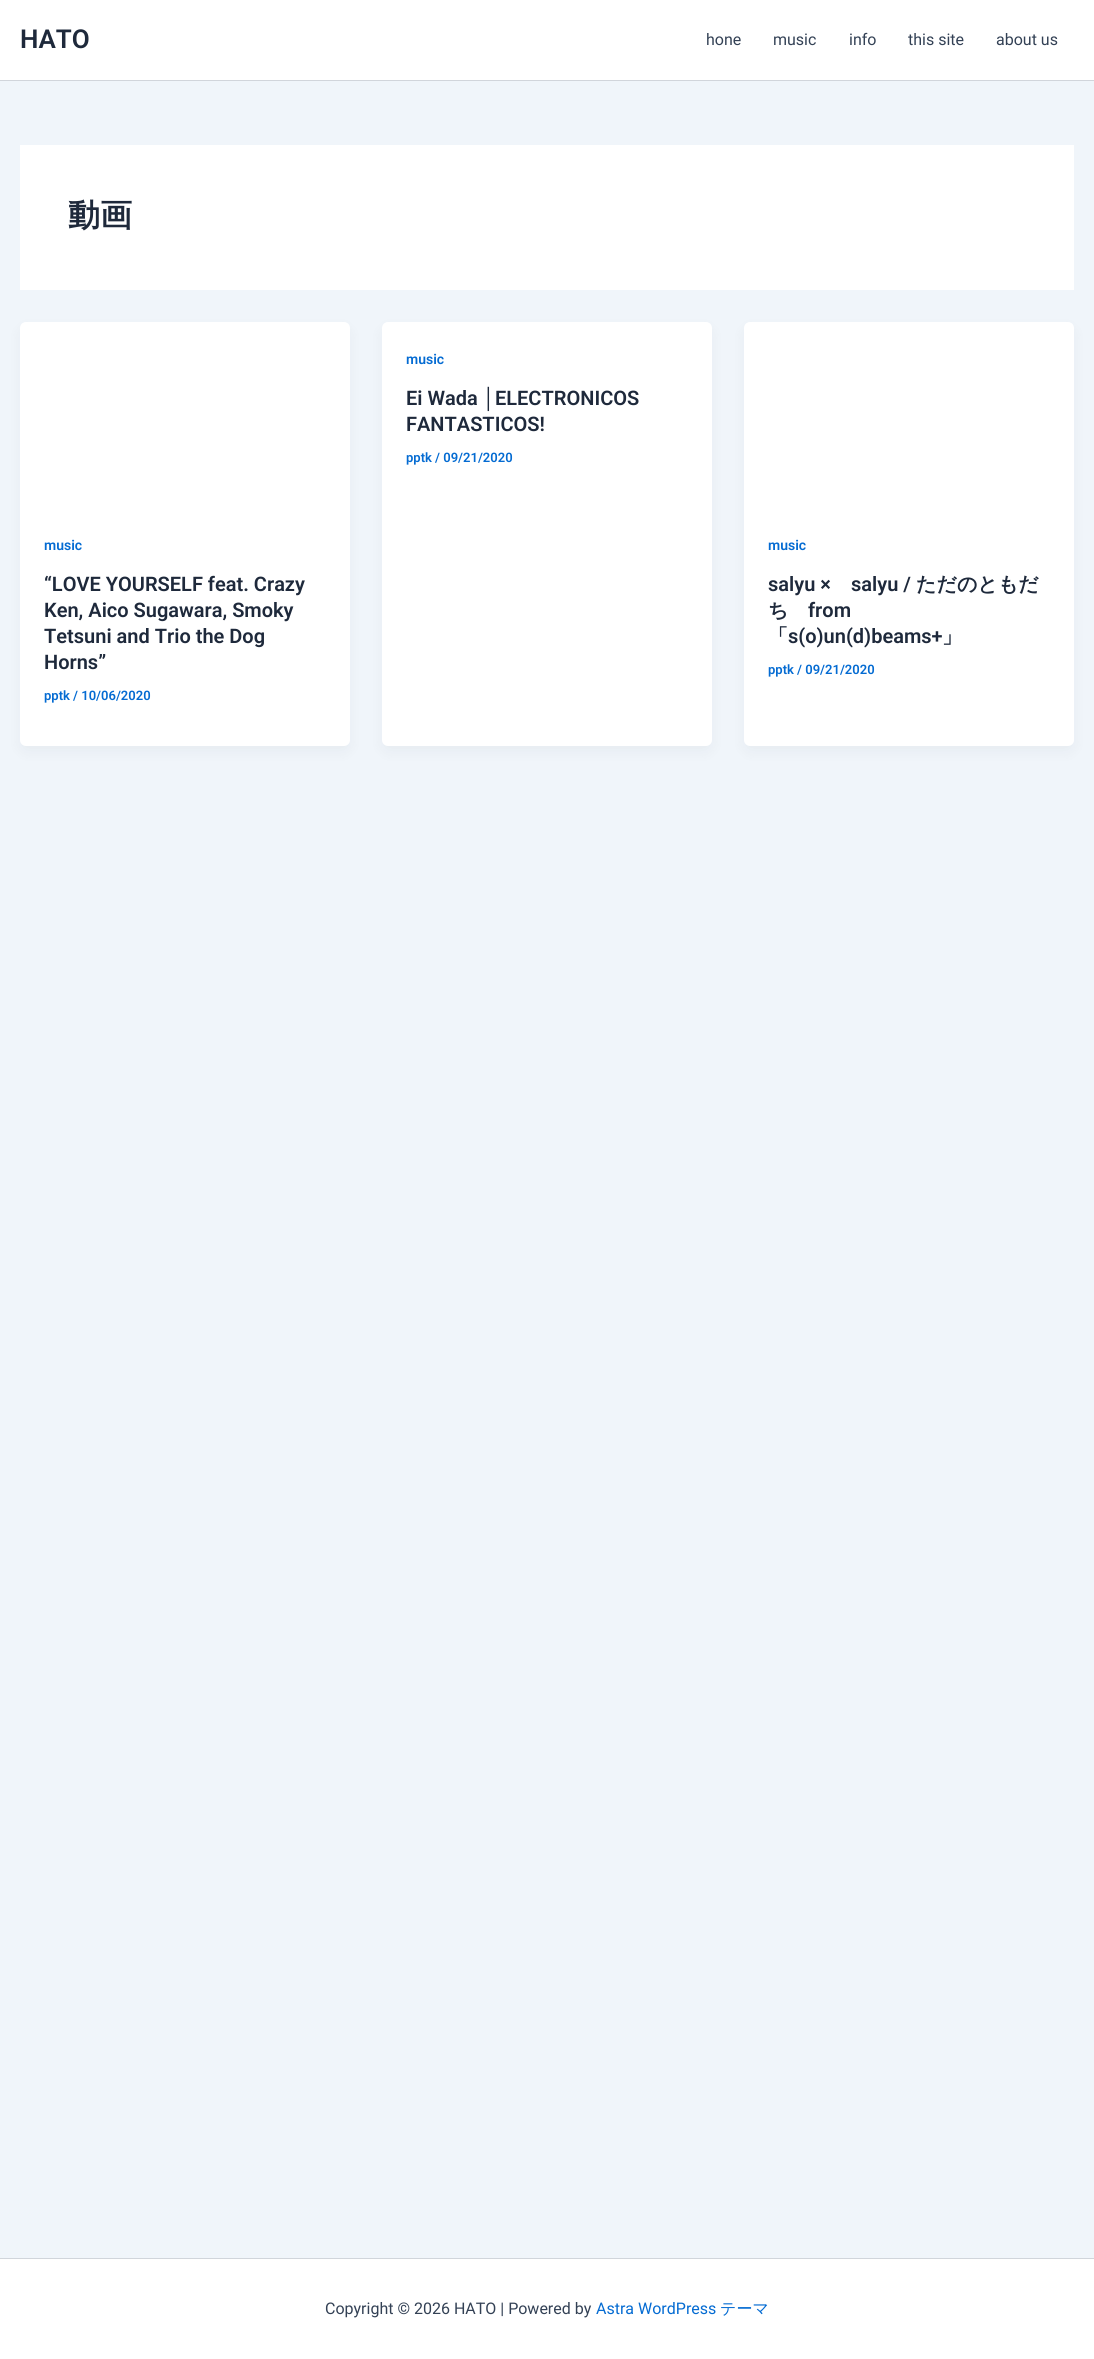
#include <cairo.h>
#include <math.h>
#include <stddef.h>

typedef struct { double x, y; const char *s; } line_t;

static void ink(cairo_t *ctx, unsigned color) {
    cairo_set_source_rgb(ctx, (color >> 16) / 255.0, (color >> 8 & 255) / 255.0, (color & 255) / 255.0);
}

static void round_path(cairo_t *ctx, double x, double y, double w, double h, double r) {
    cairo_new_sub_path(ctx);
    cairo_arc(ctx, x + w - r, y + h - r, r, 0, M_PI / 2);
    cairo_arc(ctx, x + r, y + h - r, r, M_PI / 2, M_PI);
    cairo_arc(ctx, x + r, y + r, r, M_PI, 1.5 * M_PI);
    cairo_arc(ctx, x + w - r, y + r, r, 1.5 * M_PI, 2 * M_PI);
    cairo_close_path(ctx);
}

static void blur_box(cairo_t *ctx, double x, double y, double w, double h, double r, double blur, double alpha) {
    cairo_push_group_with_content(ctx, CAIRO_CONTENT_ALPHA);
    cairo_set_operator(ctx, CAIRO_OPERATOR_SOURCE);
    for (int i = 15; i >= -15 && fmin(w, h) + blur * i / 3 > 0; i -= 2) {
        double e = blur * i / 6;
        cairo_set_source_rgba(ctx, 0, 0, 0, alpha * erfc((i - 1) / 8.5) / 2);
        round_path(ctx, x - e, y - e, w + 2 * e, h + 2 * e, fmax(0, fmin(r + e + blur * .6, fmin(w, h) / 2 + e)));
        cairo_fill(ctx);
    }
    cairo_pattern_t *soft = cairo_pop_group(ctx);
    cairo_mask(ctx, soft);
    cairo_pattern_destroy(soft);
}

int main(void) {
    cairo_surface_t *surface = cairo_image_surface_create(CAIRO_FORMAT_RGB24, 1094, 2359);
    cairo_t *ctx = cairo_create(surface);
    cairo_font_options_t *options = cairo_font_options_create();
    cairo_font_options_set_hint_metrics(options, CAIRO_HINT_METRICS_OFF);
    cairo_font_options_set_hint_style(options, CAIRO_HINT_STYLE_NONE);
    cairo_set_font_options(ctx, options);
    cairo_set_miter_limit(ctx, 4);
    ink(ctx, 0xF0F5FA);
    cairo_paint(ctx);
    ink(ctx, 0xFFFFFF);
    cairo_rectangle(ctx, 0, 0, 1094, 80);
    cairo_fill(ctx);
    ink(ctx, 0xD1D5DB);
    cairo_rectangle(ctx, 0, 80, 1094, 1);
    cairo_fill(ctx);
    cairo_select_font_face(ctx, "Roboto SemiBold", CAIRO_FONT_SLANT_NORMAL, CAIRO_FONT_WEIGHT_NORMAL);
    cairo_set_font_size(ctx, 26);
    ink(ctx, 0x1E293B);
    cairo_move_to(ctx, 20, 48);
    cairo_show_text(ctx, "HATO");
    cairo_select_font_face(ctx, "Roboto", CAIRO_FONT_SLANT_NORMAL, CAIRO_FONT_WEIGHT_NORMAL);
    cairo_set_font_size(ctx, 16);
    ink(ctx, 0x334155);
    {
        static const line_t items[] = {
            {706, 45, "hone"},
            {773, 45, "music"},
            {849, 45, "info"},
            {908, 45, "this site"},
            {996, 45, "about us"},
        };
        for (size_t i = 0; i < sizeof items / sizeof *items; i++) {
            cairo_move_to(ctx, items[i].x, items[i].y);
            cairo_show_text(ctx, items[i].s);
        }
    }
    ink(ctx, 0xFFFFFF);
    cairo_rectangle(ctx, 20, 145, 1054, 145);
    cairo_fill(ctx);
    cairo_select_font_face(ctx, "WenQuanYi Zen Hei", CAIRO_FONT_SLANT_NORMAL, CAIRO_FONT_WEIGHT_BOLD);
    cairo_set_font_size(ctx, 32);
    ink(ctx, 0x1E293B);
    cairo_move_to(ctx, 68, 226);
    cairo_show_text(ctx, "動画");
    ink(ctx, 0x101828);
    blur_box(ctx, 384, 330, 326, 420, 4, 7.5, 0.05);
    ink(ctx, 0xFFFFFF);
    round_path(ctx, 382, 322, 330, 424, 6);
    cairo_fill(ctx);
    cairo_select_font_face(ctx, "Roboto SemiBold", CAIRO_FONT_SLANT_NORMAL, CAIRO_FONT_WEIGHT_NORMAL);
    cairo_set_font_size(ctx, 14);
    ink(ctx, 0x046BD2);
    cairo_move_to(ctx, 406, 364);
    cairo_show_text(ctx, "music");
    cairo_set_font_size(ctx, 20);
    ink(ctx, 0x1E293B);
    cairo_move_to(ctx, 406, 405);
    cairo_show_text(ctx, "Ei Wada");
    cairo_select_font_face(ctx, "Liberation Sans", CAIRO_FONT_SLANT_NORMAL, CAIRO_FONT_WEIGHT_BOLD);
    cairo_move_to(ctx, 483, 405);
    cairo_show_text(ctx, "│");
    cairo_select_font_face(ctx, "Roboto SemiBold", CAIRO_FONT_SLANT_NORMAL, CAIRO_FONT_WEIGHT_NORMAL);
    cairo_move_to(ctx, 495, 405);
    cairo_show_text(ctx, "ELECTRONICOS");
    cairo_move_to(ctx, 406, 431);
    cairo_show_text(ctx, "FANTASTICOS!");
    cairo_set_font_size(ctx, 13);
    ink(ctx, 0x046BD2);
    cairo_move_to(ctx, 406, 462);
    cairo_show_text(ctx, "pptk / 09/21/2020");
    ink(ctx, 0x101828);
    blur_box(ctx, 22, 330, 326, 420, 4, 7.5, 0.05);
    ink(ctx, 0xFFFFFF);
    round_path(ctx, 20, 322, 330, 424, 6);
    cairo_fill(ctx);
    cairo_set_font_size(ctx, 14);
    ink(ctx, 0x046BD2);
    cairo_move_to(ctx, 44, 550);
    cairo_show_text(ctx, "music");
    cairo_set_font_size(ctx, 20);
    ink(ctx, 0x1E293B);
    {
        static const line_t items[] = {
            {44, 591, "“LOVE YOURSELF feat. Crazy"},
            {44, 617, "Ken, Aico Sugawara, Smoky"},
            {44, 643, "Tetsuni and Trio the Dog"},
            {44, 669, "Horns”"},
        };
        for (size_t i = 0; i < sizeof items / sizeof *items; i++) {
            cairo_move_to(ctx, items[i].x, items[i].y);
            cairo_show_text(ctx, items[i].s);
        }
    }
    cairo_set_font_size(ctx, 13);
    ink(ctx, 0x046BD2);
    cairo_move_to(ctx, 44, 700);
    cairo_show_text(ctx, "pptk / 10/06/2020");
    ink(ctx, 0x101828);
    blur_box(ctx, 746, 330, 326, 420, 4, 7.5, 0.05);
    ink(ctx, 0xFFFFFF);
    round_path(ctx, 744, 322, 330, 424, 6);
    cairo_fill(ctx);
    cairo_set_font_size(ctx, 14);
    ink(ctx, 0x046BD2);
    cairo_move_to(ctx, 768, 550);
    cairo_show_text(ctx, "music");
    cairo_set_font_size(ctx, 20);
    ink(ctx, 0x1E293B);
    cairo_move_to(ctx, 768, 591);
    cairo_show_text(ctx, "salyu ×");
    cairo_move_to(ctx, 851, 591);
    cairo_show_text(ctx, "salyu /");
    cairo_select_font_face(ctx, "WenQuanYi Zen Hei", CAIRO_FONT_SLANT_NORMAL, CAIRO_FONT_WEIGHT_BOLD);
    cairo_move_to(ctx, 916, 591);
    cairo_show_text(ctx, "ただのともだ");
    cairo_move_to(ctx, 768, 617);
    cairo_show_text(ctx, "ち");
    cairo_select_font_face(ctx, "Roboto SemiBold", CAIRO_FONT_SLANT_NORMAL, CAIRO_FONT_WEIGHT_NORMAL);
    cairo_move_to(ctx, 808, 617);
    cairo_show_text(ctx, "from");
    cairo_select_font_face(ctx, "WenQuanYi Zen Hei", CAIRO_FONT_SLANT_NORMAL, CAIRO_FONT_WEIGHT_BOLD);
    cairo_move_to(ctx, 768, 643);
    cairo_show_text(ctx, "「");
    cairo_select_font_face(ctx, "Roboto SemiBold", CAIRO_FONT_SLANT_NORMAL, CAIRO_FONT_WEIGHT_NORMAL);
    cairo_move_to(ctx, 788, 643);
    cairo_show_text(ctx, "s(o)un(d)beams+");
    cairo_select_font_face(ctx, "WenQuanYi Zen Hei", CAIRO_FONT_SLANT_NORMAL, CAIRO_FONT_WEIGHT_BOLD);
    cairo_move_to(ctx, 942, 643);
    cairo_show_text(ctx, "」");
    cairo_select_font_face(ctx, "Roboto SemiBold", CAIRO_FONT_SLANT_NORMAL, CAIRO_FONT_WEIGHT_NORMAL);
    cairo_set_font_size(ctx, 13);
    ink(ctx, 0x046BD2);
    cairo_move_to(ctx, 768, 674);
    cairo_show_text(ctx, "pptk / 09/21/2020");
    ink(ctx, 0xFFFFFF);
    cairo_rectangle(ctx, 0, 2259, 1094, 100);
    cairo_fill(ctx);
    ink(ctx, 0xD1D5DB);
    cairo_rectangle(ctx, 0, 2258, 1094, 1);
    cairo_fill(ctx);
    cairo_select_font_face(ctx, "Roboto", CAIRO_FONT_SLANT_NORMAL, CAIRO_FONT_WEIGHT_NORMAL);
    cairo_set_font_size(ctx, 16);
    ink(ctx, 0x334155);
    cairo_move_to(ctx, 325, 2314);
    cairo_show_text(ctx, "Copyright © 2026 HATO | Powered by");
    ink(ctx, 0x046BD2);
    cairo_move_to(ctx, 596, 2314);
    cairo_show_text(ctx, "Astra WordPress");
    cairo_select_font_face(ctx, "WenQuanYi Zen Hei Medium", CAIRO_FONT_SLANT_NORMAL, CAIRO_FONT_WEIGHT_NORMAL);
    cairo_move_to(ctx, 720, 2314);
    cairo_show_text(ctx, "テーマ");
    cairo_surface_write_to_png(surface, "image.png");
    cairo_font_options_destroy(options);
    cairo_destroy(ctx);
    cairo_surface_destroy(surface);
    return 0;
}
